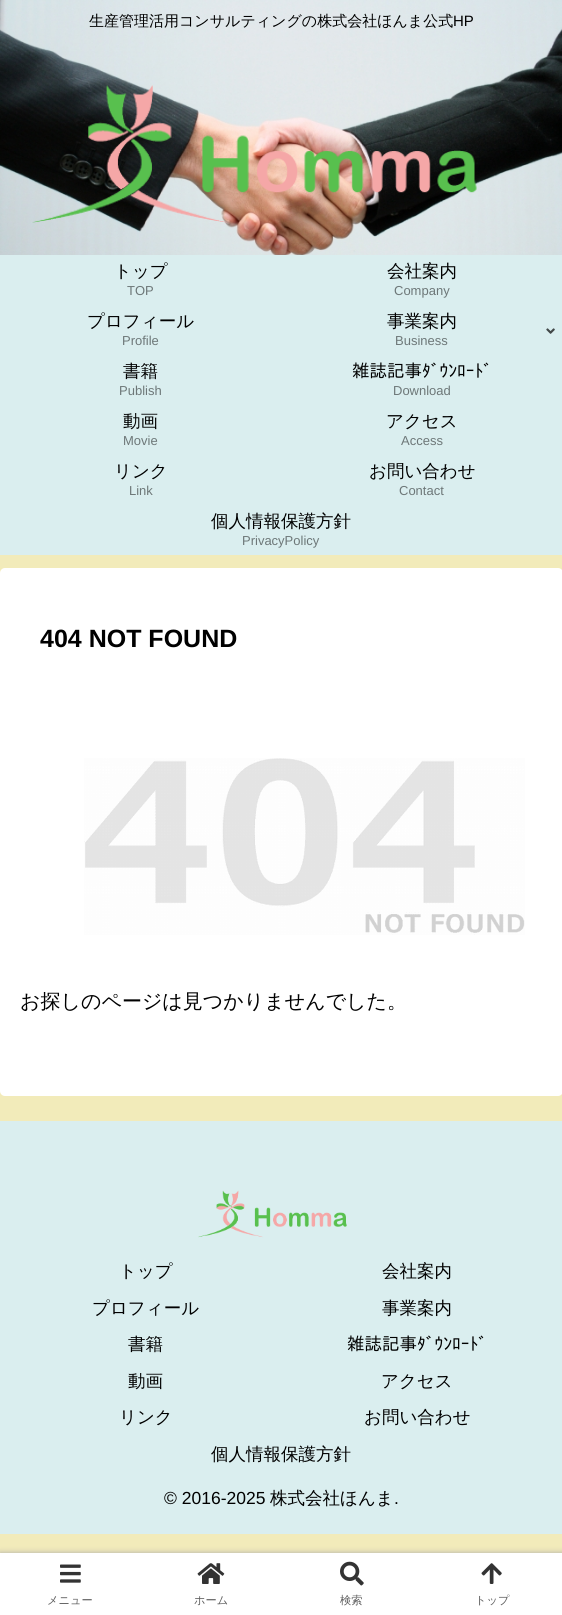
#include <cairo.h>
#include <math.h>
#include <stddef.h>

typedef struct { double x, y; const char *s; } line_t;

static void ink(cairo_t *ctx, unsigned color) {
    cairo_set_source_rgb(ctx, (color >> 16) / 255.0, (color >> 8 & 255) / 255.0, (color & 255) / 255.0);
}

static void round_path(cairo_t *ctx, double x, double y, double w, double h, double r) {
    cairo_new_sub_path(ctx);
    cairo_arc(ctx, x + w - r, y + h - r, r, 0, M_PI / 2);
    cairo_arc(ctx, x + r, y + h - r, r, M_PI / 2, M_PI);
    cairo_arc(ctx, x + r, y + r, r, M_PI, 1.5 * M_PI);
    cairo_arc(ctx, x + w - r, y + r, r, 1.5 * M_PI, 2 * M_PI);
    cairo_close_path(ctx);
}

static void blur_box(cairo_t *ctx, double x, double y, double w, double h, double r, double blur, double alpha) {
    cairo_push_group_with_content(ctx, CAIRO_CONTENT_ALPHA);
    cairo_set_operator(ctx, CAIRO_OPERATOR_SOURCE);
    for (int i = 15; i >= -15 && fmin(w, h) + blur * i / 3 > 0; i -= 2) {
        double e = blur * i / 6;
        cairo_set_source_rgba(ctx, 0, 0, 0, alpha * erfc((i - 1) / 8.5) / 2);
        round_path(ctx, x - e, y - e, w + 2 * e, h + 2 * e, fmax(0, fmin(r + e + blur * .6, fmin(w, h) / 2 + e)));
        cairo_fill(ctx);
    }
    cairo_pattern_t *soft = cairo_pop_group(ctx);
    cairo_mask(ctx, soft);
    cairo_pattern_destroy(soft);
}

static void paste(cairo_t *ctx, const char *path, double x, double y, double w, double h) {
    cairo_surface_t *image = cairo_image_surface_create_from_png(path);
    cairo_save(ctx);
    cairo_set_source_surface(ctx, image, x, y);
    cairo_rectangle(ctx, x, y, w, h);
    cairo_fill(ctx);
    cairo_restore(ctx);
    cairo_surface_destroy(image);
}

int main(void) {
    cairo_surface_t *surface = cairo_image_surface_create(CAIRO_FORMAT_RGB24, 562, 1615);
    cairo_t *ctx = cairo_create(surface);
    cairo_font_options_t *options = cairo_font_options_create();
    cairo_font_options_set_hint_metrics(options, CAIRO_HINT_METRICS_OFF);
    cairo_font_options_set_hint_style(options, CAIRO_HINT_STYLE_NONE);
    cairo_set_font_options(ctx, options);
    cairo_set_miter_limit(ctx, 4);
    ink(ctx, 0xF2EBBA);
    cairo_paint(ctx);
    ink(ctx, 0xDAEEEF);
    cairo_rectangle(ctx, 0, 255, 562, 300);
    cairo_fill(ctx);
    paste(ctx, "media/1.png", 0, 0, 562, 255);
    cairo_select_font_face(ctx, "WenQuanYi Zen Hei Medium", CAIRO_FONT_SLANT_NORMAL, CAIRO_FONT_WEIGHT_NORMAL);
    cairo_set_font_size(ctx, 15);
    ink(ctx, 0x000000);
    cairo_move_to(ctx, 89, 26);
    cairo_show_text(ctx, "生産管理活用コンサルティングの株式会社ほんま公式");
    cairo_select_font_face(ctx, "Liberation Sans", CAIRO_FONT_SLANT_NORMAL, CAIRO_FONT_WEIGHT_NORMAL);
    cairo_move_to(ctx, 453, 26);
    cairo_show_text(ctx, "HP");
    paste(ctx, "media/2.png", 32, 85, 445, 138);
    cairo_select_font_face(ctx, "WenQuanYi Zen Hei Medium", CAIRO_FONT_SLANT_NORMAL, CAIRO_FONT_WEIGHT_NORMAL);
    cairo_set_font_size(ctx, 17.5);
    cairo_move_to(ctx, 114, 277);
    cairo_show_text(ctx, "トップ");
    cairo_select_font_face(ctx, "Liberation Sans", CAIRO_FONT_SLANT_NORMAL, CAIRO_FONT_WEIGHT_NORMAL);
    cairo_set_font_size(ctx, 13);
    ink(ctx, 0x6D7778);
    cairo_move_to(ctx, 127, 295);
    cairo_show_text(ctx, "TOP");
    cairo_select_font_face(ctx, "WenQuanYi Zen Hei Medium", CAIRO_FONT_SLANT_NORMAL, CAIRO_FONT_WEIGHT_NORMAL);
    cairo_set_font_size(ctx, 17.5);
    ink(ctx, 0x000000);
    cairo_move_to(ctx, 387, 277);
    cairo_show_text(ctx, "会社案内");
    cairo_select_font_face(ctx, "Liberation Sans", CAIRO_FONT_SLANT_NORMAL, CAIRO_FONT_WEIGHT_NORMAL);
    cairo_set_font_size(ctx, 13);
    ink(ctx, 0x6D7778);
    cairo_move_to(ctx, 394, 295);
    cairo_show_text(ctx, "Company");
    cairo_select_font_face(ctx, "WenQuanYi Zen Hei Medium", CAIRO_FONT_SLANT_NORMAL, CAIRO_FONT_WEIGHT_NORMAL);
    cairo_set_font_size(ctx, 17.5);
    ink(ctx, 0x000000);
    cairo_move_to(ctx, 87, 327);
    cairo_show_text(ctx, "プロフィール");
    cairo_select_font_face(ctx, "Liberation Sans", CAIRO_FONT_SLANT_NORMAL, CAIRO_FONT_WEIGHT_NORMAL);
    cairo_set_font_size(ctx, 13);
    ink(ctx, 0x6D7778);
    cairo_move_to(ctx, 122, 345);
    cairo_show_text(ctx, "Profile");
    cairo_select_font_face(ctx, "WenQuanYi Zen Hei Medium", CAIRO_FONT_SLANT_NORMAL, CAIRO_FONT_WEIGHT_NORMAL);
    cairo_set_font_size(ctx, 17.5);
    ink(ctx, 0x000000);
    cairo_move_to(ctx, 387, 327);
    cairo_show_text(ctx, "事業案内");
    cairo_select_font_face(ctx, "Liberation Sans", CAIRO_FONT_SLANT_NORMAL, CAIRO_FONT_WEIGHT_NORMAL);
    cairo_set_font_size(ctx, 13);
    ink(ctx, 0x6D7778);
    cairo_move_to(ctx, 395, 345);
    cairo_show_text(ctx, "Business");
    paste(ctx, "media/3.png", 546, 328, 9, 6);
    cairo_select_font_face(ctx, "WenQuanYi Zen Hei Medium", CAIRO_FONT_SLANT_NORMAL, CAIRO_FONT_WEIGHT_NORMAL);
    cairo_set_font_size(ctx, 17.5);
    ink(ctx, 0x000000);
    cairo_move_to(ctx, 123, 377);
    cairo_show_text(ctx, "書籍");
    cairo_select_font_face(ctx, "Liberation Sans", CAIRO_FONT_SLANT_NORMAL, CAIRO_FONT_WEIGHT_NORMAL);
    cairo_set_font_size(ctx, 13);
    ink(ctx, 0x6D7778);
    cairo_move_to(ctx, 119, 395);
    cairo_show_text(ctx, "Publish");
    cairo_select_font_face(ctx, "IPAPGothic", CAIRO_FONT_SLANT_NORMAL, CAIRO_FONT_WEIGHT_NORMAL);
    cairo_set_font_size(ctx, 17.5);
    ink(ctx, 0x000000);
    cairo_move_to(ctx, 352, 377);
    cairo_show_text(ctx, "雑誌記事ﾀﾞｳﾝﾛｰﾄﾞ");
    cairo_select_font_face(ctx, "Liberation Sans", CAIRO_FONT_SLANT_NORMAL, CAIRO_FONT_WEIGHT_NORMAL);
    cairo_set_font_size(ctx, 13);
    ink(ctx, 0x6D7778);
    cairo_move_to(ctx, 393, 395);
    cairo_show_text(ctx, "Download");
    cairo_select_font_face(ctx, "WenQuanYi Zen Hei Medium", CAIRO_FONT_SLANT_NORMAL, CAIRO_FONT_WEIGHT_NORMAL);
    cairo_set_font_size(ctx, 17.5);
    ink(ctx, 0x000000);
    cairo_move_to(ctx, 123, 427);
    cairo_show_text(ctx, "動画");
    cairo_select_font_face(ctx, "Liberation Sans", CAIRO_FONT_SLANT_NORMAL, CAIRO_FONT_WEIGHT_NORMAL);
    cairo_set_font_size(ctx, 13);
    ink(ctx, 0x6D7778);
    cairo_move_to(ctx, 123, 445);
    cairo_show_text(ctx, "Movie");
    cairo_select_font_face(ctx, "WenQuanYi Zen Hei Medium", CAIRO_FONT_SLANT_NORMAL, CAIRO_FONT_WEIGHT_NORMAL);
    cairo_set_font_size(ctx, 17.5);
    ink(ctx, 0x000000);
    cairo_move_to(ctx, 386, 427);
    cairo_show_text(ctx, "アクセス");
    cairo_select_font_face(ctx, "Liberation Sans", CAIRO_FONT_SLANT_NORMAL, CAIRO_FONT_WEIGHT_NORMAL);
    cairo_set_font_size(ctx, 13);
    ink(ctx, 0x6D7778);
    cairo_move_to(ctx, 401, 445);
    cairo_show_text(ctx, "Access");
    cairo_select_font_face(ctx, "WenQuanYi Zen Hei Medium", CAIRO_FONT_SLANT_NORMAL, CAIRO_FONT_WEIGHT_NORMAL);
    cairo_set_font_size(ctx, 17.5);
    ink(ctx, 0x000000);
    cairo_move_to(ctx, 114, 477);
    cairo_show_text(ctx, "リンク");
    cairo_select_font_face(ctx, "Liberation Sans", CAIRO_FONT_SLANT_NORMAL, CAIRO_FONT_WEIGHT_NORMAL);
    cairo_set_font_size(ctx, 13);
    ink(ctx, 0x6D7778);
    cairo_move_to(ctx, 129, 495);
    cairo_show_text(ctx, "Link");
    cairo_select_font_face(ctx, "WenQuanYi Zen Hei Medium", CAIRO_FONT_SLANT_NORMAL, CAIRO_FONT_WEIGHT_NORMAL);
    cairo_set_font_size(ctx, 17.5);
    ink(ctx, 0x000000);
    cairo_move_to(ctx, 369, 477);
    cairo_show_text(ctx, "お問い合わせ");
    cairo_select_font_face(ctx, "Liberation Sans", CAIRO_FONT_SLANT_NORMAL, CAIRO_FONT_WEIGHT_NORMAL);
    cairo_set_font_size(ctx, 13);
    ink(ctx, 0x6D7778);
    cairo_move_to(ctx, 399, 495);
    cairo_show_text(ctx, "Contact");
    cairo_select_font_face(ctx, "WenQuanYi Zen Hei Medium", CAIRO_FONT_SLANT_NORMAL, CAIRO_FONT_WEIGHT_NORMAL);
    cairo_set_font_size(ctx, 17.5);
    ink(ctx, 0x000000);
    cairo_move_to(ctx, 211, 527);
    cairo_show_text(ctx, "個人情報保護方針");
    cairo_select_font_face(ctx, "Liberation Sans", CAIRO_FONT_SLANT_NORMAL, CAIRO_FONT_WEIGHT_NORMAL);
    cairo_set_font_size(ctx, 13);
    ink(ctx, 0x6D7778);
    cairo_move_to(ctx, 242, 545);
    cairo_show_text(ctx, "PrivacyPolicy");
    ink(ctx, 0xFFFFFF);
    round_path(ctx, 0, 568, 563, 528, 5);
    cairo_fill(ctx);
    cairo_select_font_face(ctx, "Liberation Sans", CAIRO_FONT_SLANT_NORMAL, CAIRO_FONT_WEIGHT_BOLD);
    cairo_set_font_size(ctx, 25);
    ink(ctx, 0x000000);
    cairo_move_to(ctx, 40, 647);
    cairo_show_text(ctx, "404 NOT FOUND");
    paste(ctx, "media/4.png", 84, 758, 441, 177);
    cairo_select_font_face(ctx, "WenQuanYi Zen Hei Medium", CAIRO_FONT_SLANT_NORMAL, CAIRO_FONT_WEIGHT_NORMAL);
    cairo_set_font_size(ctx, 20);
    cairo_move_to(ctx, 20, 1008);
    cairo_show_text(ctx, "お探しのページは見つかりませんでした。");
    ink(ctx, 0xDAEEEF);
    cairo_rectangle(ctx, 0, 1121, 562, 413);
    cairo_fill(ctx);
    paste(ctx, "media/5.png", 198, 1190, 149, 48);
    cairo_set_font_size(ctx, 17.5);
    ink(ctx, 0x000000);
    {
        static const line_t items[] = {
            {119, 1277, "トップ"},
            {382, 1277, "会社案内"},
            {92, 1314, "プロフィール"},
            {382, 1314, "事業案内"},
            {128, 1350, "書籍"},
        };
        for (size_t i = 0; i < sizeof items / sizeof *items; i++) {
            cairo_move_to(ctx, items[i].x, items[i].y);
            cairo_show_text(ctx, items[i].s);
        }
    }
    cairo_select_font_face(ctx, "IPAPGothic", CAIRO_FONT_SLANT_NORMAL, CAIRO_FONT_WEIGHT_NORMAL);
    cairo_move_to(ctx, 347, 1350);
    cairo_show_text(ctx, "雑誌記事ﾀﾞｳﾝﾛｰﾄﾞ");
    cairo_select_font_face(ctx, "WenQuanYi Zen Hei Medium", CAIRO_FONT_SLANT_NORMAL, CAIRO_FONT_WEIGHT_NORMAL);
    {
        static const line_t items[] = {
            {128, 1387, "動画"},
            {381, 1387, "アクセス"},
            {119, 1423, "リンク"},
            {364, 1423, "お問い合わせ"},
            {211, 1460, "個人情報保護方針"},
        };
        for (size_t i = 0; i < sizeof items / sizeof *items; i++) {
            cairo_move_to(ctx, items[i].x, items[i].y);
            cairo_show_text(ctx, items[i].s);
        }
    }
    cairo_select_font_face(ctx, "Liberation Sans", CAIRO_FONT_SLANT_NORMAL, CAIRO_FONT_WEIGHT_NORMAL);
    cairo_move_to(ctx, 164, 1504);
    cairo_show_text(ctx, "© 2016-2025");
    cairo_select_font_face(ctx, "WenQuanYi Zen Hei Medium", CAIRO_FONT_SLANT_NORMAL, CAIRO_FONT_WEIGHT_NORMAL);
    cairo_move_to(ctx, 270, 1504);
    cairo_show_text(ctx, "株式会社ほんま");
    cairo_select_font_face(ctx, "Liberation Sans", CAIRO_FONT_SLANT_NORMAL, CAIRO_FONT_WEIGHT_NORMAL);
    cairo_move_to(ctx, 394, 1504);
    cairo_show_text(ctx, ".");
    ink(ctx, 0xA9A9A9);
    blur_box(ctx, 0, 1553, 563, 62, 0, 3, 1);
    ink(ctx, 0xFFFFFF);
    cairo_rectangle(ctx, 0, 1553, 562, 62);
    cairo_fill(ctx);
    paste(ctx, "media/6.png", 60, 1564, 21, 19);
    cairo_select_font_face(ctx, "WenQuanYi Zen Hei Medium", CAIRO_FONT_SLANT_NORMAL, CAIRO_FONT_WEIGHT_NORMAL);
    cairo_set_font_size(ctx, 11.25);
    ink(ctx, 0x5C5C5C);
    cairo_move_to(ctx, 47, 1604);
    cairo_show_text(ctx, "メニュー");
    paste(ctx, "media/7.png", 197, 1563, 28, 21);
    cairo_move_to(ctx, 194, 1604);
    cairo_show_text(ctx, "ホーム");
    paste(ctx, "media/8.png", 340, 1561, 24, 25);
    cairo_move_to(ctx, 340, 1604);
    cairo_show_text(ctx, "検索");
    paste(ctx, "media/9.png", 481, 1563, 21, 21);
    cairo_move_to(ctx, 475, 1604);
    cairo_show_text(ctx, "トップ");
    cairo_surface_write_to_png(surface, "image.png");
    cairo_font_options_destroy(options);
    cairo_destroy(ctx);
    cairo_surface_destroy(surface);
    return 0;
}
